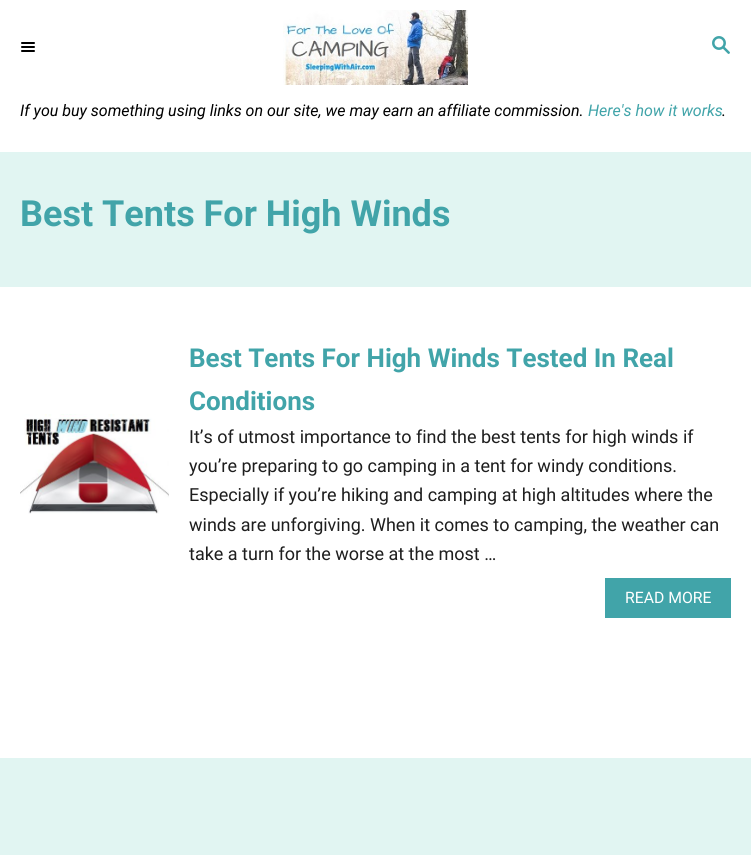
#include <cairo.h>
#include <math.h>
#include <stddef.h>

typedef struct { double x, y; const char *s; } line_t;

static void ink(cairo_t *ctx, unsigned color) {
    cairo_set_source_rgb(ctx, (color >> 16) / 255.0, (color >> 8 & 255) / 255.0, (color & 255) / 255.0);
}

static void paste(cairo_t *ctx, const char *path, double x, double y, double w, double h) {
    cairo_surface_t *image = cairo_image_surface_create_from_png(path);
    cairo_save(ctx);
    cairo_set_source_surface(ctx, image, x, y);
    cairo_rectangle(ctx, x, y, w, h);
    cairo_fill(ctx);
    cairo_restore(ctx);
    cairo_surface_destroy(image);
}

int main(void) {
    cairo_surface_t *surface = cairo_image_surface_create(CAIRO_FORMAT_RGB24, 751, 855);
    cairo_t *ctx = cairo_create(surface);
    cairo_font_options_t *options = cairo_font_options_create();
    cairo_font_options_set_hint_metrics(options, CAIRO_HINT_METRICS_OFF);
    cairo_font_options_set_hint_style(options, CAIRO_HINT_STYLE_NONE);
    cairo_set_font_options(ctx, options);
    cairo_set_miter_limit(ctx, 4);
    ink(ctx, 0xFFFFFF);
    cairo_paint(ctx);
    paste(ctx, "media/1.png", 21, 42, 14, 10);
    paste(ctx, "media/2.png", 283, 10, 185, 75);
    paste(ctx, "media/3.png", 712, 36, 18, 18);
    cairo_select_font_face(ctx, "Roboto", CAIRO_FONT_SLANT_ITALIC, CAIRO_FONT_WEIGHT_NORMAL);
    cairo_set_font_size(ctx, 16);
    ink(ctx, 0x000000);
    cairo_move_to(ctx, 20, 116);
    cairo_show_text(ctx, "If you buy something using links on our site, we may earn an affiliate commission.");
    ink(ctx, 0x41A4A9);
    cairo_move_to(ctx, 588, 116);
    cairo_show_text(ctx, "Here's how it works");
    ink(ctx, 0x000000);
    cairo_move_to(ctx, 722, 116);
    cairo_show_text(ctx, ".");
    ink(ctx, 0xE1F5F2);
    cairo_rectangle(ctx, 731, 152, 20, 135);
    cairo_fill(ctx);
    cairo_rectangle(ctx, 0, 152, 731, 135);
    cairo_fill(ctx);
    cairo_select_font_face(ctx, "Roboto", CAIRO_FONT_SLANT_NORMAL, CAIRO_FONT_WEIGHT_BOLD);
    cairo_set_font_size(ctx, 36);
    ink(ctx, 0x41A4A9);
    cairo_move_to(ctx, 20, 226);
    cairo_show_text(ctx, "Best Tents For High Winds");
    paste(ctx, "media/4.png", 20, 414, 149, 100);
    cairo_set_font_size(ctx, 26);
    cairo_move_to(ctx, 189, 367);
    cairo_show_text(ctx, "Best Tents For High Winds Tested In Real");
    cairo_move_to(ctx, 189, 410);
    cairo_show_text(ctx, "Conditions");
    cairo_select_font_face(ctx, "Roboto", CAIRO_FONT_SLANT_NORMAL, CAIRO_FONT_WEIGHT_NORMAL);
    cairo_set_font_size(ctx, 18);
    ink(ctx, 0x1E1E1E);
    {
        static const line_t items[] = {
            {189, 443, "It’s of utmost importance to find the best tents for high winds if"},
            {189, 472, "you’re preparing to go camping in a tent for windy conditions."},
            {189, 501, "Especially if you’re hiking and camping at high altitudes where the"},
            {189, 531, "winds are unforgiving. When it comes to camping, the weather can"},
            {189, 560, "take a turn for the worse at the most …"},
        };
        for (size_t i = 0; i < sizeof items / sizeof *items; i++) {
            cairo_move_to(ctx, items[i].x, items[i].y);
            cairo_show_text(ctx, items[i].s);
        }
    }
    ink(ctx, 0x41A4A9);
    cairo_rectangle(ctx, 605, 578, 126, 40);
    cairo_fill(ctx);
    cairo_set_font_size(ctx, 15.75);
    ink(ctx, 0xFFFFFF);
    cairo_move_to(ctx, 625, 603);
    cairo_show_text(ctx, "READ MORE");
    ink(ctx, 0xE1F5F2);
    cairo_rectangle(ctx, 0, 758, 751, 97);
    cairo_fill(ctx);
    cairo_surface_write_to_png(surface, "image.png");
    cairo_font_options_destroy(options);
    cairo_destroy(ctx);
    cairo_surface_destroy(surface);
    return 0;
}
